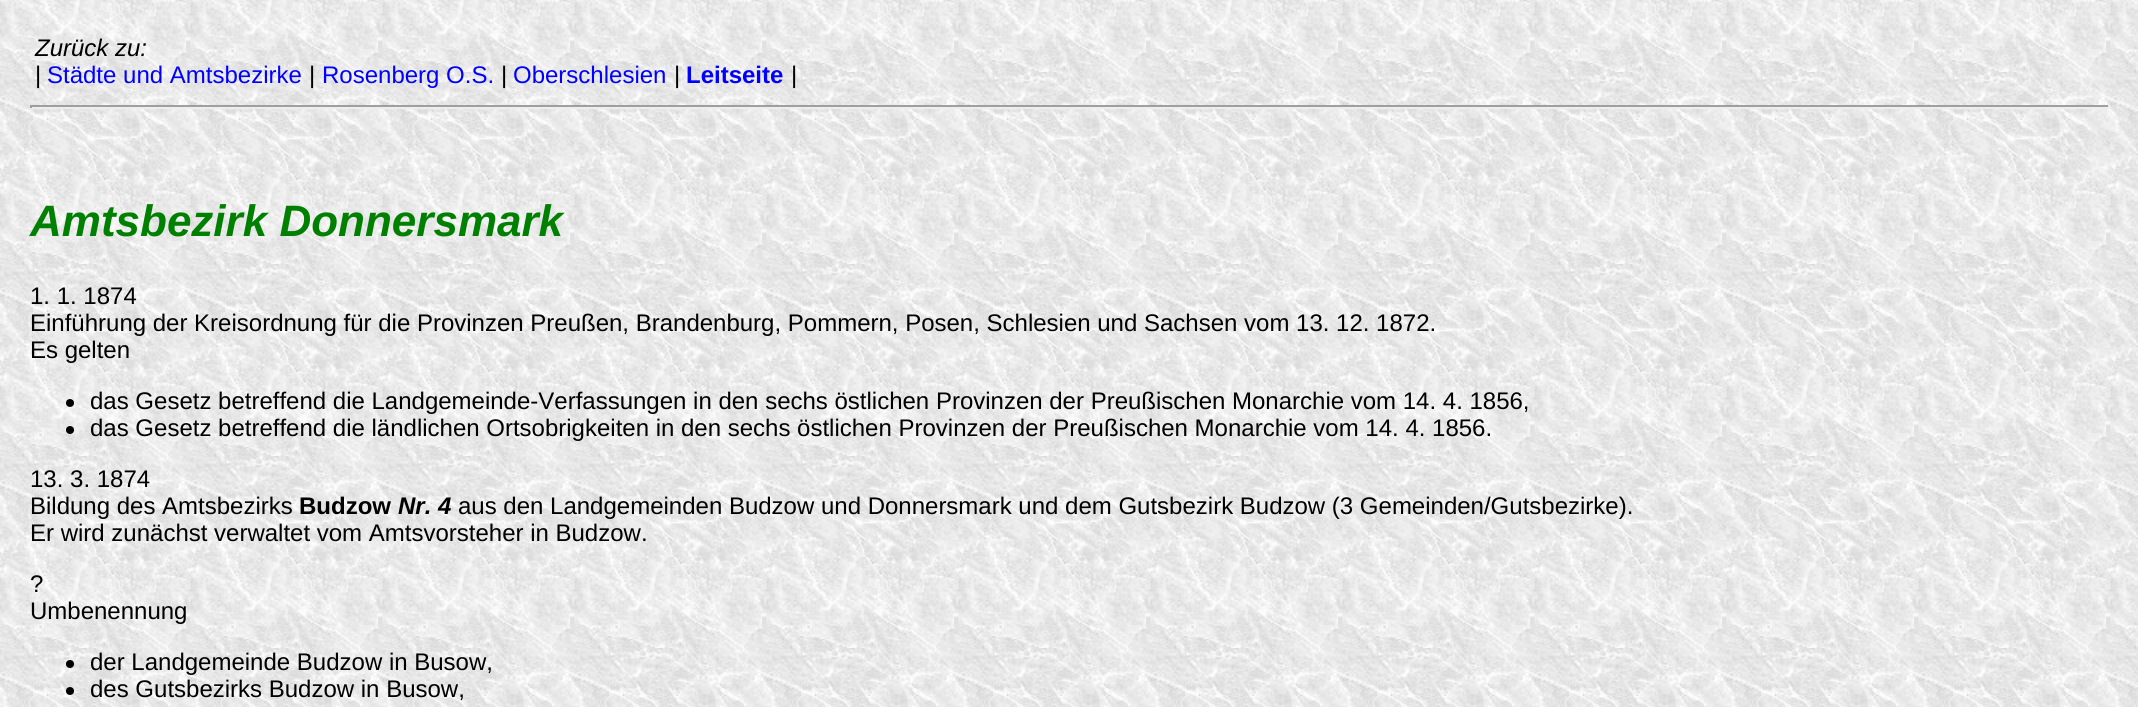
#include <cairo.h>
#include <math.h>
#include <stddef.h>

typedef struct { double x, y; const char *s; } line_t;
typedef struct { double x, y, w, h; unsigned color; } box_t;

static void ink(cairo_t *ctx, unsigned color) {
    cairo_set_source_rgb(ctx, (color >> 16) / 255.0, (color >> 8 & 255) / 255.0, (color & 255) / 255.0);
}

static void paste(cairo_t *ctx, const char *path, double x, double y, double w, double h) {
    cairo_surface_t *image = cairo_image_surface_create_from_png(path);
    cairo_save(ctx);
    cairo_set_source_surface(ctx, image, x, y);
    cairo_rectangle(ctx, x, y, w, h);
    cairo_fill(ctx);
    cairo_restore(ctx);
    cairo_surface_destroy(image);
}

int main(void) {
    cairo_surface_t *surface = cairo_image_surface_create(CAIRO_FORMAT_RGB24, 2138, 707);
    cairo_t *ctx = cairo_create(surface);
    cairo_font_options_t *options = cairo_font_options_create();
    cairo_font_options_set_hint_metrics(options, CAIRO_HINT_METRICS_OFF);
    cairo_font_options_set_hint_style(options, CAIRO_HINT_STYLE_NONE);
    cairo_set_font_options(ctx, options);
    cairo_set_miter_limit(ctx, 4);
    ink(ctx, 0xFFFFFF);
    cairo_paint(ctx);
    paste(ctx, "media/1.png", 0, 0, 2138, 707);
    cairo_select_font_face(ctx, "Liberation Sans", CAIRO_FONT_SLANT_ITALIC, CAIRO_FONT_WEIGHT_NORMAL);
    cairo_set_font_size(ctx, 24);
    ink(ctx, 0x000000);
    cairo_move_to(ctx, 35, 56);
    cairo_show_text(ctx, "Zurück zu:");
    cairo_select_font_face(ctx, "Liberation Sans", CAIRO_FONT_SLANT_NORMAL, CAIRO_FONT_WEIGHT_NORMAL);
    cairo_move_to(ctx, 35, 83);
    cairo_show_text(ctx, "|");
    ink(ctx, 0x0000FF);
    cairo_move_to(ctx, 47, 83);
    cairo_show_text(ctx, "Städte und Amtsbezirke");
    ink(ctx, 0x000000);
    cairo_move_to(ctx, 309, 83);
    cairo_show_text(ctx, "|");
    ink(ctx, 0x0000FF);
    cairo_move_to(ctx, 322, 83);
    cairo_show_text(ctx, "Rosenberg O.S.");
    ink(ctx, 0x000000);
    cairo_move_to(ctx, 501, 83);
    cairo_show_text(ctx, "|");
    ink(ctx, 0x0000FF);
    cairo_move_to(ctx, 513, 83);
    cairo_show_text(ctx, "Oberschlesien");
    ink(ctx, 0x000000);
    cairo_move_to(ctx, 674, 83);
    cairo_show_text(ctx, "|");
    cairo_select_font_face(ctx, "Liberation Sans", CAIRO_FONT_SLANT_NORMAL, CAIRO_FONT_WEIGHT_BOLD);
    ink(ctx, 0x0000FF);
    cairo_move_to(ctx, 686, 83);
    cairo_show_text(ctx, "Leitseite");
    cairo_select_font_face(ctx, "Liberation Sans", CAIRO_FONT_SLANT_NORMAL, CAIRO_FONT_WEIGHT_NORMAL);
    ink(ctx, 0x000000);
    cairo_move_to(ctx, 791, 83);
    cairo_show_text(ctx, "|");
    {
        static const box_t items[] = {
            {30, 105, 2079, 2, 0x9F9F9F},
            {2108, 105, 1, 3, 0xEEEEEE},
            {30, 107, 2079, 2, 0xEEEEEE},
            {30, 105, 2, 3, 0x9F9F9F},
        };
        for (size_t i = 0; i < sizeof items / sizeof *items; i++) {
            ink(ctx, items[i].color);
            cairo_rectangle(ctx, items[i].x, items[i].y, items[i].w, items[i].h);
            cairo_fill(ctx);
        }
    }
    cairo_select_font_face(ctx, "Liberation Sans", CAIRO_FONT_SLANT_ITALIC, CAIRO_FONT_WEIGHT_BOLD);
    cairo_set_font_size(ctx, 44);
    ink(ctx, 0x008000);
    cairo_move_to(ctx, 30, 236);
    cairo_show_text(ctx, "Amtsbezirk Donnersmark");
    cairo_select_font_face(ctx, "Liberation Sans", CAIRO_FONT_SLANT_NORMAL, CAIRO_FONT_WEIGHT_NORMAL);
    cairo_set_font_size(ctx, 24);
    ink(ctx, 0x000000);
    {
        static const line_t items[] = {
            {30, 304, "1. 1. 1874"},
            {30, 331, "Einführung der Kreisordnung für die Provinzen Preußen, Brandenburg, Pommern, Posen, Schlesien und Sachsen vom 13. 12. 1872."},
            {30, 358, "Es gelten"},
        };
        for (size_t i = 0; i < sizeof items / sizeof *items; i++) {
            cairo_move_to(ctx, items[i].x, items[i].y);
            cairo_show_text(ctx, items[i].s);
        }
    }
    cairo_new_path(ctx);
    cairo_arc(ctx, 70, 403, 4, 0, 2 * M_PI);
    cairo_fill(ctx);
    cairo_move_to(ctx, 90, 409);
    cairo_show_text(ctx, "das Gesetz betreffend die Landgemeinde-Verfassungen in den sechs östlichen Provinzen der Preußischen Monarchie vom 14. 4. 1856,");
    cairo_new_path(ctx);
    cairo_arc(ctx, 70, 430, 4, 0, 2 * M_PI);
    cairo_fill(ctx);
    {
        static const line_t items[] = {
            {90, 436, "das Gesetz betreffend die ländlichen Ortsobrigkeiten in den sechs östlichen Provinzen der Preußischen Monarchie vom 14. 4. 1856."},
            {30, 487, "13. 3. 1874"},
            {30, 514, "Bildung des Amtsbezirks"},
        };
        for (size_t i = 0; i < sizeof items / sizeof *items; i++) {
            cairo_move_to(ctx, items[i].x, items[i].y);
            cairo_show_text(ctx, items[i].s);
        }
    }
    cairo_select_font_face(ctx, "Liberation Sans", CAIRO_FONT_SLANT_NORMAL, CAIRO_FONT_WEIGHT_BOLD);
    cairo_move_to(ctx, 299, 514);
    cairo_show_text(ctx, "Budzow");
    cairo_select_font_face(ctx, "Liberation Sans", CAIRO_FONT_SLANT_ITALIC, CAIRO_FONT_WEIGHT_BOLD);
    cairo_move_to(ctx, 398, 514);
    cairo_show_text(ctx, "Nr. 4");
    cairo_select_font_face(ctx, "Liberation Sans", CAIRO_FONT_SLANT_NORMAL, CAIRO_FONT_WEIGHT_NORMAL);
    {
        static const line_t items[] = {
            {458, 514, "aus den Landgemeinden Budzow und Donnersmark und dem Gutsbezirk Budzow (3 Gemeinden/Gutsbezirke)."},
            {30, 541, "Er wird zunächst verwaltet vom Amtsvorsteher in Budzow."},
            {30, 592, "?"},
            {30, 619, "Umbenennung"},
        };
        for (size_t i = 0; i < sizeof items / sizeof *items; i++) {
            cairo_move_to(ctx, items[i].x, items[i].y);
            cairo_show_text(ctx, items[i].s);
        }
    }
    cairo_new_path(ctx);
    cairo_arc(ctx, 70, 664, 4, 0, 2 * M_PI);
    cairo_fill(ctx);
    cairo_move_to(ctx, 90, 670);
    cairo_show_text(ctx, "der Landgemeinde Budzow in Busow,");
    cairo_new_path(ctx);
    cairo_arc(ctx, 70, 691, 4, 0, 2 * M_PI);
    cairo_fill(ctx);
    cairo_move_to(ctx, 90, 697);
    cairo_show_text(ctx, "des Gutsbezirks Budzow in Busow,");
    cairo_surface_write_to_png(surface, "image.png");
    cairo_font_options_destroy(options);
    cairo_destroy(ctx);
    cairo_surface_destroy(surface);
    return 0;
}
